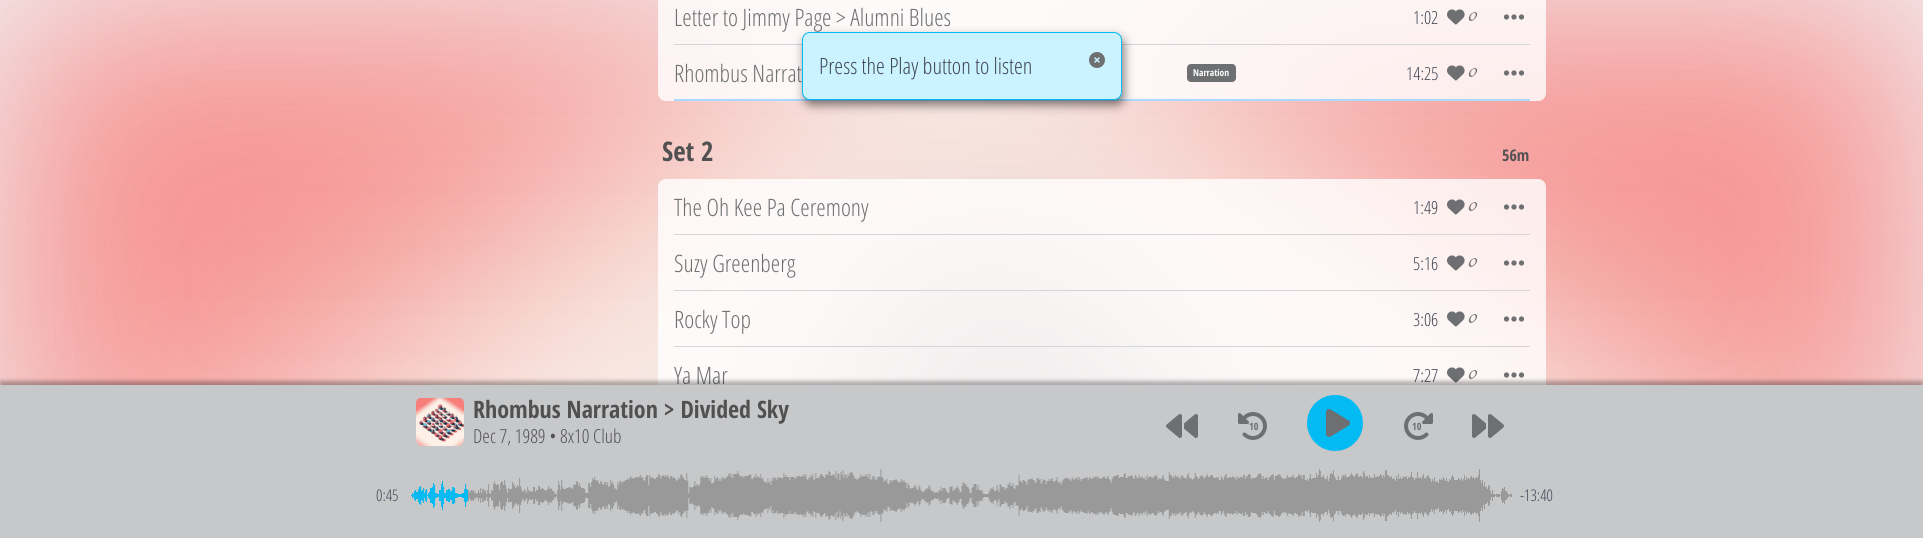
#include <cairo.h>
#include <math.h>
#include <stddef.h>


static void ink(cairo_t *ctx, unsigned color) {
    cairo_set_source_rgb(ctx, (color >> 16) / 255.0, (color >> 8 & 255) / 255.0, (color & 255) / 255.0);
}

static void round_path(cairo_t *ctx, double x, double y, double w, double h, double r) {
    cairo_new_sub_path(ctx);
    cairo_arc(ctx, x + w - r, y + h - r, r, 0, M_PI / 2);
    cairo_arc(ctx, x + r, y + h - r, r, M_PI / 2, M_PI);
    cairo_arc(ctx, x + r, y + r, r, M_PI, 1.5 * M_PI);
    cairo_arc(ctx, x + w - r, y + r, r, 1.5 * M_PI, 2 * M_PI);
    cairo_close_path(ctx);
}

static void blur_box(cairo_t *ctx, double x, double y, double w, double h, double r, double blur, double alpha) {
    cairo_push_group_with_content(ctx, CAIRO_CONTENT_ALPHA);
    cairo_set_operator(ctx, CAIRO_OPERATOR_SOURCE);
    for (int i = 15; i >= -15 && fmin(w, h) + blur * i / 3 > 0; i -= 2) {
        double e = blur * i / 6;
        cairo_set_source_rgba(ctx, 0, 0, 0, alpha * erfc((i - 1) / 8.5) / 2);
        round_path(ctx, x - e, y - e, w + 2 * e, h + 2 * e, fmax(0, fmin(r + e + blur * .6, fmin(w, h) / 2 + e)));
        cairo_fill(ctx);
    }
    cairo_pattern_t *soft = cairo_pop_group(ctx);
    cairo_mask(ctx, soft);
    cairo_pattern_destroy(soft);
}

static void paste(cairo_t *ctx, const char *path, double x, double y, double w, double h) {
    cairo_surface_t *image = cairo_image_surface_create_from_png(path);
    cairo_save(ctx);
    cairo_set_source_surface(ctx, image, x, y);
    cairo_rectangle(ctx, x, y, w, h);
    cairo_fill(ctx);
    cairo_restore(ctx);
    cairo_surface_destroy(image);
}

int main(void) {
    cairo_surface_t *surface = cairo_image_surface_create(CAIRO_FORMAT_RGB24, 1923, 538);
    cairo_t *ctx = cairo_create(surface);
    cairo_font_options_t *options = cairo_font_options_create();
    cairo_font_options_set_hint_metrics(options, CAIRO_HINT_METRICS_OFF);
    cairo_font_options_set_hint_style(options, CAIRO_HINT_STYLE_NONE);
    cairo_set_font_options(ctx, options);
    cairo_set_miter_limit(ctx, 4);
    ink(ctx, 0xF2F3F5);
    cairo_paint(ctx);
    paste(ctx, "media/1.png", 0, 0, 1923, 385);
    cairo_set_source_rgba(ctx, 1, 1, 1, 0.8);
    cairo_rectangle(ctx, 658, 0, 888, 45);
    cairo_fill(ctx);
    cairo_select_font_face(ctx, "Open Sans Condensed Light", CAIRO_FONT_SLANT_NORMAL, CAIRO_FONT_WEIGHT_NORMAL);
    cairo_set_font_size(ctx, 24);
    ink(ctx, 0x6D6F71);
    cairo_move_to(ctx, 674, 26);
    cairo_show_text(ctx, "Letter to Jimmy Page > Alumni Blues");
    cairo_set_font_size(ctx, 18);
    ink(ctx, 0x404654);
    cairo_move_to(ctx, 1413, 24);
    cairo_show_text(ctx, "1:02");
    paste(ctx, "media/2.png", 1447, 9, 18, 16);
    cairo_select_font_face(ctx, "Marck Script", CAIRO_FONT_SLANT_NORMAL, CAIRO_FONT_WEIGHT_NORMAL);
    ink(ctx, 0x6D6F71);
    cairo_move_to(ctx, 1469, 21);
    cairo_show_text(ctx, "0");
    paste(ctx, "media/3.png", 1503, 14, 22, 6);
    ink(ctx, 0xD4D5D7);
    cairo_rectangle(ctx, 674, 44, 856, 1);
    cairo_fill(ctx);
    cairo_set_source_rgba(ctx, 1, 1, 1, 0.8);
    cairo_new_path(ctx);
    cairo_move_to(ctx, 658, 45);
    cairo_line_to(ctx, 1546, 45);
    cairo_line_to(ctx, 1546, 93);
    cairo_curve_to(ctx, 1546, 97.5, 1542.5, 101, 1538, 101);
    cairo_line_to(ctx, 666, 101);
    cairo_curve_to(ctx, 661.5, 101, 658, 97.5, 658, 93);
    cairo_close_path(ctx);
    cairo_fill(ctx);
    cairo_select_font_face(ctx, "Open Sans Condensed Light", CAIRO_FONT_SLANT_NORMAL, CAIRO_FONT_WEIGHT_NORMAL);
    cairo_set_font_size(ctx, 24);
    ink(ctx, 0x6D6F71);
    cairo_move_to(ctx, 674, 82);
    cairo_show_text(ctx, "Rhombus Narrat");
    round_path(ctx, 1187, 64, 49, 18, 4);
    cairo_fill(ctx);
    cairo_select_font_face(ctx, "Open Sans Condensed", CAIRO_FONT_SLANT_NORMAL, CAIRO_FONT_WEIGHT_BOLD);
    cairo_set_font_size(ctx, 9.5);
    ink(ctx, 0xFFFFFF);
    cairo_move_to(ctx, 1193, 76);
    cairo_show_text(ctx, "Narration");
    cairo_select_font_face(ctx, "Open Sans Condensed Light", CAIRO_FONT_SLANT_NORMAL, CAIRO_FONT_WEIGHT_NORMAL);
    cairo_set_font_size(ctx, 18);
    ink(ctx, 0x404654);
    cairo_move_to(ctx, 1406, 80);
    cairo_show_text(ctx, "14:25");
    paste(ctx, "media/4.png", 1447, 65, 18, 16);
    cairo_select_font_face(ctx, "Marck Script", CAIRO_FONT_SLANT_NORMAL, CAIRO_FONT_WEIGHT_NORMAL);
    ink(ctx, 0x6D6F71);
    cairo_move_to(ctx, 1469, 77);
    cairo_show_text(ctx, "0");
    paste(ctx, "media/5.png", 1503, 70, 22, 6);
    ink(ctx, 0xABD9FF);
    cairo_rectangle(ctx, 674, 99, 856, 2);
    cairo_fill(ctx);
    cairo_select_font_face(ctx, "Open Sans Condensed", CAIRO_FONT_SLANT_NORMAL, CAIRO_FONT_WEIGHT_BOLD);
    cairo_set_font_size(ctx, 27);
    ink(ctx, 0x515152);
    cairo_move_to(ctx, 662, 161);
    cairo_show_text(ctx, "Set 2");
    cairo_set_font_size(ctx, 16);
    cairo_move_to(ctx, 1502, 161);
    cairo_show_text(ctx, "56m");
    cairo_set_source_rgba(ctx, 1, 1, 1, 0.8);
    cairo_new_path(ctx);
    cairo_move_to(ctx, 666, 179);
    cairo_line_to(ctx, 1538, 179);
    cairo_curve_to(ctx, 1542.5, 179, 1546, 182.5, 1546, 187);
    cairo_line_to(ctx, 1546, 235);
    cairo_line_to(ctx, 658, 235);
    cairo_line_to(ctx, 658, 187);
    cairo_curve_to(ctx, 658, 182.5, 661.5, 179, 666, 179);
    cairo_close_path(ctx);
    cairo_fill(ctx);
    cairo_select_font_face(ctx, "Open Sans Condensed Light", CAIRO_FONT_SLANT_NORMAL, CAIRO_FONT_WEIGHT_NORMAL);
    cairo_set_font_size(ctx, 24);
    ink(ctx, 0x6D6F71);
    cairo_move_to(ctx, 674, 216);
    cairo_show_text(ctx, "The Oh Kee Pa Ceremony");
    cairo_set_font_size(ctx, 18);
    ink(ctx, 0x404654);
    cairo_move_to(ctx, 1413, 214);
    cairo_show_text(ctx, "1:49");
    paste(ctx, "media/6.png", 1447, 199, 18, 16);
    cairo_select_font_face(ctx, "Marck Script", CAIRO_FONT_SLANT_NORMAL, CAIRO_FONT_WEIGHT_NORMAL);
    ink(ctx, 0x6D6F71);
    cairo_move_to(ctx, 1469, 211);
    cairo_show_text(ctx, "0");
    paste(ctx, "media/7.png", 1503, 204, 22, 6);
    ink(ctx, 0xD4D5D7);
    cairo_rectangle(ctx, 674, 234, 856, 1);
    cairo_fill(ctx);
    cairo_set_source_rgba(ctx, 1, 1, 1, 0.8);
    cairo_rectangle(ctx, 658, 235, 888, 56);
    cairo_fill(ctx);
    cairo_select_font_face(ctx, "Open Sans Condensed Light", CAIRO_FONT_SLANT_NORMAL, CAIRO_FONT_WEIGHT_NORMAL);
    cairo_set_font_size(ctx, 24);
    ink(ctx, 0x6D6F71);
    cairo_move_to(ctx, 674, 272);
    cairo_show_text(ctx, "Suzy Greenberg");
    cairo_set_font_size(ctx, 18);
    ink(ctx, 0x404654);
    cairo_move_to(ctx, 1413, 270);
    cairo_show_text(ctx, "5:16");
    paste(ctx, "media/8.png", 1447, 255, 18, 16);
    cairo_select_font_face(ctx, "Marck Script", CAIRO_FONT_SLANT_NORMAL, CAIRO_FONT_WEIGHT_NORMAL);
    ink(ctx, 0x6D6F71);
    cairo_move_to(ctx, 1469, 267);
    cairo_show_text(ctx, "0");
    paste(ctx, "media/9.png", 1503, 260, 22, 6);
    ink(ctx, 0xD4D5D7);
    cairo_rectangle(ctx, 674, 290, 856, 1);
    cairo_fill(ctx);
    cairo_set_source_rgba(ctx, 1, 1, 1, 0.8);
    cairo_rectangle(ctx, 658, 291, 888, 56);
    cairo_fill(ctx);
    cairo_select_font_face(ctx, "Open Sans Condensed Light", CAIRO_FONT_SLANT_NORMAL, CAIRO_FONT_WEIGHT_NORMAL);
    cairo_set_font_size(ctx, 24);
    ink(ctx, 0x6D6F71);
    cairo_move_to(ctx, 674, 328);
    cairo_show_text(ctx, "Rocky Top");
    cairo_set_font_size(ctx, 18);
    ink(ctx, 0x404654);
    cairo_move_to(ctx, 1413, 326);
    cairo_show_text(ctx, "3:06");
    paste(ctx, "media/10.png", 1447, 311, 18, 16);
    cairo_select_font_face(ctx, "Marck Script", CAIRO_FONT_SLANT_NORMAL, CAIRO_FONT_WEIGHT_NORMAL);
    ink(ctx, 0x6D6F71);
    cairo_move_to(ctx, 1469, 323);
    cairo_show_text(ctx, "0");
    paste(ctx, "media/11.png", 1503, 316, 22, 6);
    ink(ctx, 0xD4D5D7);
    cairo_rectangle(ctx, 674, 346, 856, 1);
    cairo_fill(ctx);
    cairo_set_source_rgba(ctx, 1, 1, 1, 0.8);
    cairo_rectangle(ctx, 658, 347, 888, 38);
    cairo_fill(ctx);
    cairo_select_font_face(ctx, "Open Sans Condensed Light", CAIRO_FONT_SLANT_NORMAL, CAIRO_FONT_WEIGHT_NORMAL);
    cairo_set_font_size(ctx, 24);
    ink(ctx, 0x6D6F71);
    cairo_move_to(ctx, 674, 384);
    cairo_show_text(ctx, "Ya Mar");
    cairo_set_font_size(ctx, 18);
    ink(ctx, 0x404654);
    cairo_move_to(ctx, 1413, 382);
    cairo_show_text(ctx, "7:27");
    paste(ctx, "media/12.png", 1447, 367, 18, 16);
    cairo_select_font_face(ctx, "Marck Script", CAIRO_FONT_SLANT_NORMAL, CAIRO_FONT_WEIGHT_NORMAL);
    ink(ctx, 0x6D6F71);
    cairo_move_to(ctx, 1469, 379);
    cairo_show_text(ctx, "0");
    paste(ctx, "media/13.png", 1503, 372, 22, 6);
    ink(ctx, 0x000000);
    blur_box(ctx, 0, 381, 1923, 153, 0, 2, 0.3);
    ink(ctx, 0xC7C8CA);
    cairo_rectangle(ctx, 0, 385, 1923, 153);
    cairo_fill(ctx);
    paste(ctx, "media/14.png", 416, 398, 48, 48);
    cairo_select_font_face(ctx, "Open Sans Condensed", CAIRO_FONT_SLANT_NORMAL, CAIRO_FONT_WEIGHT_BOLD);
    cairo_set_font_size(ctx, 24);
    ink(ctx, 0x515152);
    cairo_move_to(ctx, 473, 418);
    cairo_show_text(ctx, "Rhombus Narration > Divided Sky");
    cairo_select_font_face(ctx, "Open Sans Condensed Light", CAIRO_FONT_SLANT_NORMAL, CAIRO_FONT_WEIGHT_NORMAL);
    cairo_set_font_size(ctx, 19.25);
    cairo_move_to(ctx, 473, 443);
    cairo_show_text(ctx, "Dec 7, 1989 • 8x10 Club");
    paste(ctx, "media/15.png", 1166, 414, 32, 24);
    paste(ctx, "media/16.png", 1238, 412, 29, 28);
    cairo_select_font_face(ctx, "Open Sans Condensed", CAIRO_FONT_SLANT_NORMAL, CAIRO_FONT_WEIGHT_BOLD);
    cairo_set_font_size(ctx, 10);
    ink(ctx, 0x6D6F71);
    cairo_move_to(ctx, 1249, 430);
    cairo_show_text(ctx, "10");
    ink(ctx, 0x03BBF2);
    cairo_new_path(ctx);
    cairo_arc(ctx, 1335, 423, 28, 0, 2 * M_PI);
    cairo_fill(ctx);
    paste(ctx, "media/17.png", 1326, 409, 24, 28);
    paste(ctx, "media/18.png", 1404, 412, 29, 28);
    ink(ctx, 0x6D6F71);
    cairo_move_to(ctx, 1412, 430);
    cairo_show_text(ctx, "10");
    paste(ctx, "media/19.png", 1472, 414, 32, 24);
    cairo_select_font_face(ctx, "Open Sans Condensed Light", CAIRO_FONT_SLANT_NORMAL, CAIRO_FONT_WEIGHT_NORMAL);
    cairo_set_font_size(ctx, 16);
    ink(ctx, 0x404654);
    cairo_move_to(ctx, 376, 501);
    cairo_show_text(ctx, "0:45");
    paste(ctx, "media/20.png", 412, 469, 1100, 53);
    paste(ctx, "media/21.png", 411, 481, 57, 29);
    cairo_move_to(ctx, 1520, 501);
    cairo_show_text(ctx, "-13:40");
    ink(ctx, 0x000000);
    blur_box(ctx, 804, 37, 320, 68, 8, 5, 0.5);
    ink(ctx, 0xCBF3FF);
    round_path(ctx, 802.5, 32.5, 319, 67, 7.5);
    cairo_fill_preserve(ctx);
    ink(ctx, 0x03BBF2);
    cairo_set_line_width(ctx, 1);
    cairo_stroke(ctx);
    cairo_set_font_size(ctx, 22.5);
    ink(ctx, 0x404654);
    cairo_move_to(ctx, 819, 74);
    cairo_show_text(ctx, "Press the Play button to listen");
    paste(ctx, "media/22.png", 1089, 52, 16, 16);
    cairo_surface_write_to_png(surface, "image.png");
    cairo_font_options_destroy(options);
    cairo_destroy(ctx);
    cairo_surface_destroy(surface);
    return 0;
}
